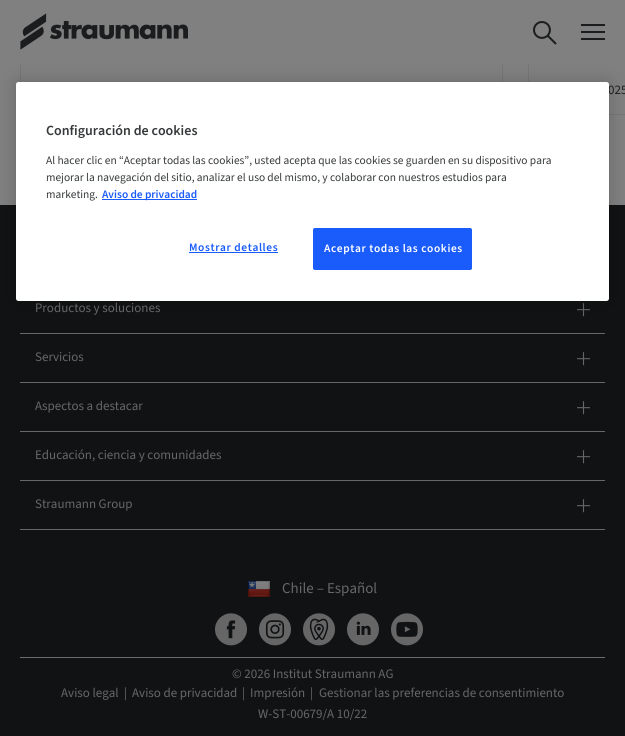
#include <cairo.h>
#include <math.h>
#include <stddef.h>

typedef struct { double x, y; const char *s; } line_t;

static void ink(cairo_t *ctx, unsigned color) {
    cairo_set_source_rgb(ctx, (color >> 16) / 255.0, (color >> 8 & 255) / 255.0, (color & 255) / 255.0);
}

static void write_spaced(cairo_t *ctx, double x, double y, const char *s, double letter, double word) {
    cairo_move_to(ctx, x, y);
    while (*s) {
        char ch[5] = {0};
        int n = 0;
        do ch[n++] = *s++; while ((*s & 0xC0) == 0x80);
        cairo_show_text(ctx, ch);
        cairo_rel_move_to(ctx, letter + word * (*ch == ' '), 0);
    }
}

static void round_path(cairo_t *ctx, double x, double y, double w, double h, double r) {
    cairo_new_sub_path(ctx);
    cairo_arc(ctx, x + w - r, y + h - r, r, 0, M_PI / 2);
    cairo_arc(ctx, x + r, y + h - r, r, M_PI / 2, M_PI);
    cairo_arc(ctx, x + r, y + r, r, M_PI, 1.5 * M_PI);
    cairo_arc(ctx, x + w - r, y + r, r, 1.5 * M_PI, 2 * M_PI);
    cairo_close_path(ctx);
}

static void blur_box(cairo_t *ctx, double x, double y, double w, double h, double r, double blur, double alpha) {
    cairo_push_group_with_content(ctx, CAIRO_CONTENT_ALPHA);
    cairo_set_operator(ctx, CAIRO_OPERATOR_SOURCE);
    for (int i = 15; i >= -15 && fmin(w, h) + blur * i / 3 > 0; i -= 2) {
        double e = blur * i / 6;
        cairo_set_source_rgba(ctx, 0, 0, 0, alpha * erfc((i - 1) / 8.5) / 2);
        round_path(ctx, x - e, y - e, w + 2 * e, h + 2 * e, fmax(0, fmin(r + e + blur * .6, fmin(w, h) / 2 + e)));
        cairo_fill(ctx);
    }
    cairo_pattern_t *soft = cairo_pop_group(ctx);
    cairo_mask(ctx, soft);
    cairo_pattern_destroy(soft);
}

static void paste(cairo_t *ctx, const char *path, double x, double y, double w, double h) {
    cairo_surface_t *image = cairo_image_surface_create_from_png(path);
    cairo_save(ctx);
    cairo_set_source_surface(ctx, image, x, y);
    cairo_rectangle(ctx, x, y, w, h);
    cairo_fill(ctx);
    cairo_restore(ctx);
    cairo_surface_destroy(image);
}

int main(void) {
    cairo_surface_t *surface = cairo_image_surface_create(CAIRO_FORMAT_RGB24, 625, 736);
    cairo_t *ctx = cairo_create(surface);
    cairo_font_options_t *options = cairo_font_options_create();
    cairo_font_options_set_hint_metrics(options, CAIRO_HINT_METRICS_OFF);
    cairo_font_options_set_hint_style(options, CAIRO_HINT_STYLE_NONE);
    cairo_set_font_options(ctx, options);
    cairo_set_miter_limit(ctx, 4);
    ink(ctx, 0x808080);
    cairo_paint(ctx);
    cairo_rectangle(ctx, 20.5, -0.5, 482, 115);
    ink(ctx, 0x767676);
    cairo_set_line_width(ctx, 1);
    cairo_stroke(ctx);
    cairo_rectangle(ctx, 528.5, -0.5, 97, 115);
    cairo_stroke(ctx);
    ink(ctx, 0x808080);
    cairo_rectangle(ctx, 20, 0, 509, 64);
    cairo_fill(ctx);
    paste(ctx, "media/1.png", 20, 13, 168, 37);
    paste(ctx, "media/2.png", 533, 21, 24, 24);
    paste(ctx, "media/3.png", 581, 24, 24, 16);
    cairo_select_font_face(ctx, "Source Sans 3", CAIRO_FONT_SLANT_NORMAL, CAIRO_FONT_WEIGHT_NORMAL);
    cairo_set_font_size(ctx, 13);
    ink(ctx, 0x1B1D1D);
    cairo_move_to(ctx, 608, 94);
    cairo_show_text(ctx, "025");
    ink(ctx, 0x111213);
    cairo_rectangle(ctx, 0, 205, 625, 531);
    cairo_fill(ctx);
    paste(ctx, "media/4.png", 577, 303, 13, 14);
    ink(ctx, 0x000000);
    blur_box(ctx, 16, 82, 593, 219, 2.5, 9, 0.2);
    ink(ctx, 0xFFFFFF);
    round_path(ctx, 16, 82, 593, 219, 2.5);
    cairo_fill(ctx);
    cairo_select_font_face(ctx, "Source Sans 3 SemiBold", CAIRO_FONT_SLANT_NORMAL, CAIRO_FONT_WEIGHT_NORMAL);
    cairo_set_font_size(ctx, 14);
    ink(ctx, 0x36393A);
    cairo_move_to(ctx, 46, 135);
    cairo_show_text(ctx, "Configuración de cookies");
    cairo_select_font_face(ctx, "Source Sans 3", CAIRO_FONT_SLANT_NORMAL, CAIRO_FONT_WEIGHT_NORMAL);
    cairo_set_font_size(ctx, 11.4);
    {
        static const line_t items[] = {
            {46, 164, "Al hacer clic en “Aceptar todas las cookies”, usted acepta que las cookies se guarden en su dispositivo para"},
            {46, 181, "mejorar la navegación del sitio, analizar el uso del mismo, y colaborar con nuestros estudios para"},
            {46, 198, "marketing."},
        };
        for (size_t i = 0; i < sizeof items / sizeof *items; i++) {
            cairo_move_to(ctx, items[i].x, items[i].y);
            cairo_show_text(ctx, items[i].s);
        }
    }
    ink(ctx, 0x1A5BFB);
    cairo_rectangle(ctx, 102, 199, 95, 1);
    cairo_fill(ctx);
    cairo_select_font_face(ctx, "Source Sans 3 SemiBold", CAIRO_FONT_SLANT_NORMAL, CAIRO_FONT_WEIGHT_NORMAL);
    cairo_move_to(ctx, 102, 198);
    cairo_show_text(ctx, "Aviso de privacidad");
    write_spaced(ctx, 189, 251, "Mostrar detalles", 0.6, 0);
    cairo_rectangle(ctx, 189, 252, 89, 1);
    cairo_fill(ctx);
    round_path(ctx, 313.5, 228.5, 158, 41, 1.5);
    cairo_fill_preserve(ctx);
    cairo_stroke(ctx);
    ink(ctx, 0xFFFFFF);
    write_spaced(ctx, 324, 252, "Aceptar todas las cookies", 0.6, 0);
    cairo_select_font_face(ctx, "Source Sans 3", CAIRO_FONT_SLANT_NORMAL, CAIRO_FONT_WEIGHT_NORMAL);
    cairo_set_font_size(ctx, 13);
    ink(ctx, 0x676767);
    cairo_move_to(ctx, 35, 312);
    cairo_show_text(ctx, "Productos y soluciones");
    cairo_rectangle(ctx, 20, 333, 585, 1);
    cairo_fill(ctx);
    cairo_move_to(ctx, 35, 361);
    cairo_show_text(ctx, "Servicios");
    paste(ctx, "media/4.png", 577, 352, 13, 14);
    cairo_rectangle(ctx, 20, 382, 585, 1);
    cairo_fill(ctx);
    cairo_move_to(ctx, 35, 410);
    cairo_show_text(ctx, "Aspectos a destacar");
    paste(ctx, "media/4.png", 577, 401, 13, 14);
    cairo_rectangle(ctx, 20, 431, 585, 1);
    cairo_fill(ctx);
    cairo_move_to(ctx, 35, 459);
    cairo_show_text(ctx, "Educación, ciencia y comunidades");
    paste(ctx, "media/4.png", 577, 450, 13, 14);
    cairo_rectangle(ctx, 20, 529, 585, 1);
    cairo_fill(ctx);
    cairo_rectangle(ctx, 20, 480, 585, 1);
    cairo_fill(ctx);
    cairo_move_to(ctx, 35, 508);
    cairo_show_text(ctx, "Straumann Group");
    paste(ctx, "media/4.png", 577, 499, 13, 14);
    paste(ctx, "media/5.png", 248, 581, 22, 17);
    cairo_set_font_size(ctx, 15);
    cairo_move_to(ctx, 282, 593);
    cairo_show_text(ctx, "Chile – Español");
    paste(ctx, "media/6.png", 215, 613, 32, 33);
    paste(ctx, "media/7.png", 259, 613, 32, 33);
    paste(ctx, "media/8.png", 303, 613, 32, 33);
    paste(ctx, "media/9.png", 347, 613, 32, 33);
    paste(ctx, "media/10.png", 391, 613, 32, 33);
    ink(ctx, 0x6D6D6D);
    cairo_rectangle(ctx, 20, 657, 585, 1);
    cairo_fill(ctx);
    cairo_set_font_size(ctx, 13);
    ink(ctx, 0x676767);
    {
        static const line_t items[] = {
            {232, 678, "© 2026 Institut Straumann AG"},
            {61, 697, "Aviso legal"},
            {124, 697, "|"},
            {132, 697, "Aviso de privacidad"},
            {242, 697, "|"},
            {250, 697, "Impresión"},
            {310, 697, "|"},
            {319, 697, "Gestionar las preferencias de consentimiento"},
            {258, 718, "W-ST-00679/A 10/22"},
        };
        for (size_t i = 0; i < sizeof items / sizeof *items; i++) {
            cairo_move_to(ctx, items[i].x, items[i].y);
            cairo_show_text(ctx, items[i].s);
        }
    }
    cairo_surface_write_to_png(surface, "image.png");
    cairo_font_options_destroy(options);
    cairo_destroy(ctx);
    cairo_surface_destroy(surface);
    return 0;
}
